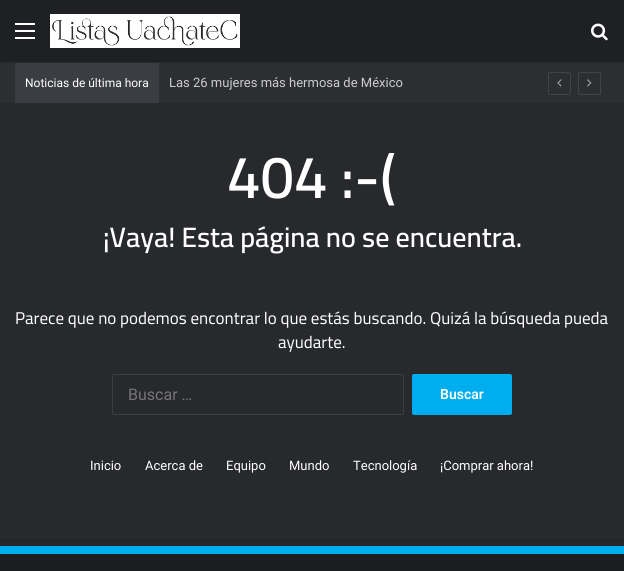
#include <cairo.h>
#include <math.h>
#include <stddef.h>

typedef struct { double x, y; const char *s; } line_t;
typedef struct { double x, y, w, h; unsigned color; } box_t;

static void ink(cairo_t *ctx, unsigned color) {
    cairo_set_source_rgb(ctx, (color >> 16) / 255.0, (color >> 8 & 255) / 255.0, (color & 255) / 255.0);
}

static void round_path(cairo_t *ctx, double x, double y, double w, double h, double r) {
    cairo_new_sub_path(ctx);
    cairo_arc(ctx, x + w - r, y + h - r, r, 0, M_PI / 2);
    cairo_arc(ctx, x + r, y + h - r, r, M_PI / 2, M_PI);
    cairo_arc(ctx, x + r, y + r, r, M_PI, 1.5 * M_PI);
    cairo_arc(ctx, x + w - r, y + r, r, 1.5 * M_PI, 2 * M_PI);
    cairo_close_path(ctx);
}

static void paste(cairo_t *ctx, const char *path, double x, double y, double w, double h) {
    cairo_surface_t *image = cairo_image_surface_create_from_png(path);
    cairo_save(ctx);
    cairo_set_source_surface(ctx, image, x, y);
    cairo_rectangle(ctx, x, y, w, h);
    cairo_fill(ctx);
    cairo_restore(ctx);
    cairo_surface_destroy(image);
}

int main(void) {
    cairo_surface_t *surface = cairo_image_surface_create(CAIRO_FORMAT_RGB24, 624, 571);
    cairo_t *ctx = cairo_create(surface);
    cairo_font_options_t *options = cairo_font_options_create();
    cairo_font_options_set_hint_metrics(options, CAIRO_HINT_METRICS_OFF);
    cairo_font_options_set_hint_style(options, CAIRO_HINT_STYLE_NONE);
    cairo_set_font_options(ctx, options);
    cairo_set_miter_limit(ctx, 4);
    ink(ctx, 0x27292D);
    cairo_paint(ctx);
    {
        static const box_t items[] = {
            {0, 0, 624, 62, 0x1F2024},
            {15, 30, 20, 2, 0xFFFFFF},
            {15, 23, 20, 2, 0xFFFFFF},
            {15, 37, 20, 2, 0xFFFFFF},
        };
        for (size_t i = 0; i < sizeof items / sizeof *items; i++) {
            ink(ctx, items[i].color);
            cairo_rectangle(ctx, items[i].x, items[i].y, items[i].w, items[i].h);
            cairo_fill(ctx);
        }
    }
    paste(ctx, "media/1.png", 50, 14, 190, 34);
    paste(ctx, "media/2.png", 591, 23, 17, 18);
    ink(ctx, 0x2C2E32);
    cairo_rectangle(ctx, 0, 63, 624, 40);
    cairo_fill(ctx);
    ink(ctx, 0x3B3D42);
    cairo_rectangle(ctx, 15, 63, 144, 40);
    cairo_fill(ctx);
    cairo_select_font_face(ctx, "Roboto", CAIRO_FONT_SLANT_NORMAL, CAIRO_FONT_WEIGHT_NORMAL);
    cairo_set_font_size(ctx, 12);
    ink(ctx, 0xFFFFFF);
    cairo_move_to(ctx, 25, 87);
    cairo_show_text(ctx, "Noticias de última hora");
    cairo_set_font_size(ctx, 13);
    ink(ctx, 0xCCCCCC);
    cairo_move_to(ctx, 169, 87);
    cairo_show_text(ctx, "Las 26 mujeres más hermosa de México");
    round_path(ctx, 548.5, 72.5, 22, 22, 1.5);
    ink(ctx, 0x414347);
    cairo_set_line_width(ctx, 1);
    cairo_stroke(ctx);
    paste(ctx, "media/3.png", 557, 79, 5, 8);
    round_path(ctx, 578.5, 72.5, 22, 22, 1.5);
    cairo_stroke(ctx);
    paste(ctx, "media/4.png", 587, 79, 5, 8);
    cairo_select_font_face(ctx, "Cairo SemiBold", CAIRO_FONT_SLANT_NORMAL, CAIRO_FONT_WEIGHT_NORMAL);
    cairo_set_font_size(ctx, 60);
    ink(ctx, 0xFFFFFF);
    cairo_move_to(ctx, 227, 198);
    cairo_show_text(ctx, "404 :-(");
    cairo_set_font_size(ctx, 28);
    cairo_move_to(ctx, 103, 247);
    cairo_show_text(ctx, "¡Vaya! Esta página no se encuentra.");
    cairo_select_font_face(ctx, "Cairo", CAIRO_FONT_SLANT_NORMAL, CAIRO_FONT_WEIGHT_NORMAL);
    cairo_set_font_size(ctx, 17);
    cairo_move_to(ctx, 15, 324);
    cairo_show_text(ctx, "Parece que no podemos encontrar lo que estás buscando. Quizá la búsqueda pueda");
    cairo_move_to(ctx, 278, 348);
    cairo_show_text(ctx, "ayudarte.");
    round_path(ctx, 112.5, 374.5, 291, 40, 1.5);
    ink(ctx, 0x3D3E42);
    cairo_stroke(ctx);
    cairo_select_font_face(ctx, "Roboto", CAIRO_FONT_SLANT_NORMAL, CAIRO_FONT_WEIGHT_NORMAL);
    cairo_set_font_size(ctx, 16);
    ink(ctx, 0x757575);
    cairo_move_to(ctx, 128, 400);
    cairo_show_text(ctx, "Buscar …");
    ink(ctx, 0x00ADEF);
    round_path(ctx, 412, 374, 100, 41, 2);
    cairo_fill(ctx);
    cairo_select_font_face(ctx, "Roboto SemiBold", CAIRO_FONT_SLANT_NORMAL, CAIRO_FONT_WEIGHT_NORMAL);
    cairo_set_font_size(ctx, 14);
    ink(ctx, 0xFFFFFF);
    cairo_move_to(ctx, 440, 399);
    cairo_show_text(ctx, "Buscar");
    cairo_select_font_face(ctx, "Roboto", CAIRO_FONT_SLANT_NORMAL, CAIRO_FONT_WEIGHT_NORMAL);
    cairo_set_font_size(ctx, 13);
    {
        static const line_t items[] = {
            {90, 470, "Inicio"},
            {145, 470, "Acerca de"},
            {226, 470, "Equipo"},
            {289, 470, "Mundo"},
            {353, 470, "Tecnología"},
            {440, 470, "¡Comprar ahora!"},
        };
        for (size_t i = 0; i < sizeof items / sizeof *items; i++) {
            cairo_move_to(ctx, items[i].x, items[i].y);
            cairo_show_text(ctx, items[i].s);
        }
    }
    {
        static const box_t items[] = {
            {0, 554, 624, 17, 0x1C1D21},
            {0, 538, 624, 8, 0x24262A},
            {0, 546, 624, 8, 0x00ADEF},
        };
        for (size_t i = 0; i < sizeof items / sizeof *items; i++) {
            ink(ctx, items[i].color);
            cairo_rectangle(ctx, items[i].x, items[i].y, items[i].w, items[i].h);
            cairo_fill(ctx);
        }
    }
    cairo_surface_write_to_png(surface, "image.png");
    cairo_font_options_destroy(options);
    cairo_destroy(ctx);
    cairo_surface_destroy(surface);
    return 0;
}
